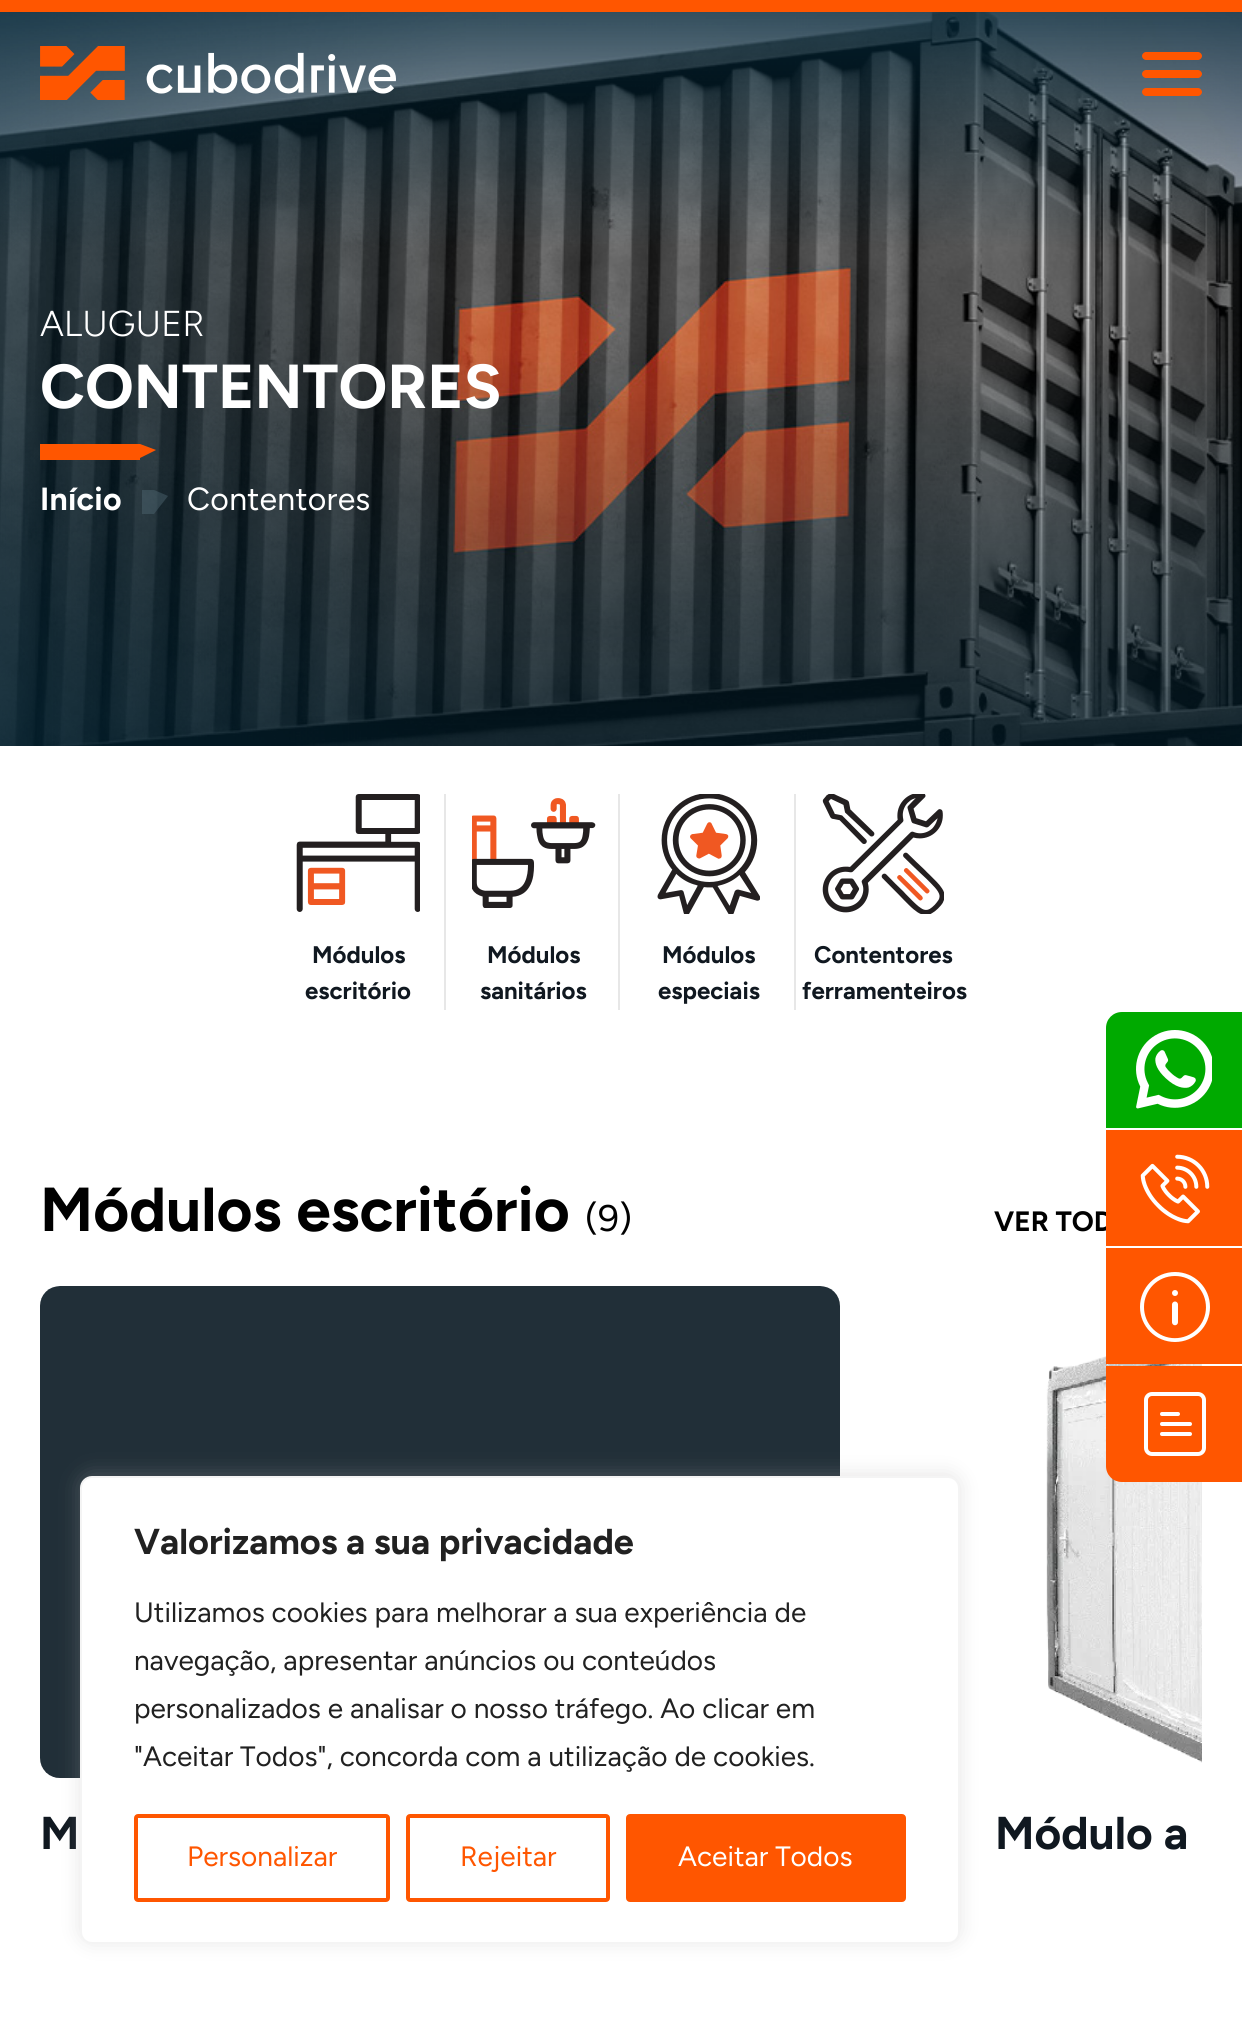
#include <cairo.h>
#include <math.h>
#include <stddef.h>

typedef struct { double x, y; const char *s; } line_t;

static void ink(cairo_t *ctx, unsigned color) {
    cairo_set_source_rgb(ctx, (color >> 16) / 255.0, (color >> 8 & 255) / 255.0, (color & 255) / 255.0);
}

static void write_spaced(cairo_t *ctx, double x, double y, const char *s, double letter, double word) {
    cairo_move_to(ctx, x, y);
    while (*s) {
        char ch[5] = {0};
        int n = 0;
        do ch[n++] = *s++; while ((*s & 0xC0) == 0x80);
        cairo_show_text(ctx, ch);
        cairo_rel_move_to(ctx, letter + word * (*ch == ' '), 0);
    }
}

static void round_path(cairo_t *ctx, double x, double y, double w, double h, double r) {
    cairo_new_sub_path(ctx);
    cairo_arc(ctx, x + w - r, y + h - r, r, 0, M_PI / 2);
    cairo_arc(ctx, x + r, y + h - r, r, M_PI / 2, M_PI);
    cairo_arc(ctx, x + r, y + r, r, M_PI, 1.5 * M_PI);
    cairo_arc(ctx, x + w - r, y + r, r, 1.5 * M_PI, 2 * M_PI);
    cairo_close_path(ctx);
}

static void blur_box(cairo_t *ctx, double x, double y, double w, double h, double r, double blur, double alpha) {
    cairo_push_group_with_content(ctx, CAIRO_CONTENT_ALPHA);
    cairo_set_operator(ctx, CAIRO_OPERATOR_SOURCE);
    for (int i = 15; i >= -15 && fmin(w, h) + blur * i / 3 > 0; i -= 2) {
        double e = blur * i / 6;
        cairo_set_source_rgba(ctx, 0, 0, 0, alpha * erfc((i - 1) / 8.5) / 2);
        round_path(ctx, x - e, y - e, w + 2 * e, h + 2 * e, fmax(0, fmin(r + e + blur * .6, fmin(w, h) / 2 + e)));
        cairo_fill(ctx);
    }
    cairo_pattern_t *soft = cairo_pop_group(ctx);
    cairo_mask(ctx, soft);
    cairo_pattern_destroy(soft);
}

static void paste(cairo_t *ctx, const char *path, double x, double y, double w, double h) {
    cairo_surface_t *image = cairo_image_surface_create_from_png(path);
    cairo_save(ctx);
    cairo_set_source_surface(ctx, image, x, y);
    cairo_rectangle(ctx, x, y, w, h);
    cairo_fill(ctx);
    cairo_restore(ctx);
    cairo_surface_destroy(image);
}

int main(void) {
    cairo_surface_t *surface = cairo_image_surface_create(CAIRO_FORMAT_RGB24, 1242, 2024);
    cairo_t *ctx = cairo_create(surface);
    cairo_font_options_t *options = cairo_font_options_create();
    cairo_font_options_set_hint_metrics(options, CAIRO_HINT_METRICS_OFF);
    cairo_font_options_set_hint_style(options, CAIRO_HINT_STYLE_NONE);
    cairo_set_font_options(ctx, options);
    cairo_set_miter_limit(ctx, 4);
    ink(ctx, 0xFFFFFF);
    cairo_paint(ctx);
    ink(ctx, 0xFF5600);
    cairo_rectangle(ctx, 0, 0, 1242, 12);
    cairo_fill(ctx);
    paste(ctx, "media/2.png", 0, 12, 1242, 734);
    paste(ctx, "media/3.png", 0, 12, 1242, 734);
    paste(ctx, "media/1.png", 40, 46, 356, 54);
    cairo_new_path(ctx);
    cairo_move_to(ctx, 1146, 52);
    cairo_line_to(ctx, 1172, 52);
    cairo_line_to(ctx, 1172, 60);
    cairo_line_to(ctx, 1146, 60);
    cairo_curve_to(ctx, 1144, 60, 1142, 58, 1142, 56);
    cairo_curve_to(ctx, 1142, 54, 1144, 52, 1146, 52);
    cairo_close_path(ctx);
    cairo_fill(ctx);
    cairo_new_path(ctx);
    cairo_move_to(ctx, 1172, 52);
    cairo_line_to(ctx, 1198, 52);
    cairo_curve_to(ctx, 1200, 52, 1202, 54, 1202, 56);
    cairo_curve_to(ctx, 1202, 58, 1200, 60, 1198, 60);
    cairo_line_to(ctx, 1172, 60);
    cairo_close_path(ctx);
    cairo_fill(ctx);
    cairo_new_path(ctx);
    cairo_move_to(ctx, 1146, 70);
    cairo_line_to(ctx, 1172, 70);
    cairo_line_to(ctx, 1172, 78);
    cairo_line_to(ctx, 1146, 78);
    cairo_curve_to(ctx, 1144, 78, 1142, 76, 1142, 74);
    cairo_curve_to(ctx, 1142, 72, 1144, 70, 1146, 70);
    cairo_close_path(ctx);
    cairo_fill(ctx);
    cairo_new_path(ctx);
    cairo_move_to(ctx, 1172, 70);
    cairo_line_to(ctx, 1198, 70);
    cairo_curve_to(ctx, 1200, 70, 1202, 72, 1202, 74);
    cairo_curve_to(ctx, 1202, 76, 1200, 78, 1198, 78);
    cairo_line_to(ctx, 1172, 78);
    cairo_close_path(ctx);
    cairo_fill(ctx);
    cairo_new_path(ctx);
    cairo_move_to(ctx, 1146, 88);
    cairo_line_to(ctx, 1172, 88);
    cairo_line_to(ctx, 1172, 96);
    cairo_line_to(ctx, 1146, 96);
    cairo_curve_to(ctx, 1144, 96, 1142, 94, 1142, 92);
    cairo_curve_to(ctx, 1142, 90, 1144, 88, 1146, 88);
    cairo_close_path(ctx);
    cairo_fill(ctx);
    cairo_new_path(ctx);
    cairo_move_to(ctx, 1172, 88);
    cairo_line_to(ctx, 1198, 88);
    cairo_curve_to(ctx, 1200, 88, 1202, 90, 1202, 92);
    cairo_curve_to(ctx, 1202, 94, 1200, 96, 1198, 96);
    cairo_line_to(ctx, 1172, 96);
    cairo_close_path(ctx);
    cairo_fill(ctx);
    cairo_select_font_face(ctx, "Figtree Light", CAIRO_FONT_SLANT_NORMAL, CAIRO_FONT_WEIGHT_NORMAL);
    cairo_set_font_size(ctx, 36);
    ink(ctx, 0xFFFFFF);
    cairo_move_to(ctx, 40, 336);
    cairo_show_text(ctx, "ALUGUER");
    cairo_select_font_face(ctx, "Figtree", CAIRO_FONT_SLANT_NORMAL, CAIRO_FONT_WEIGHT_BOLD);
    cairo_set_font_size(ctx, 62);
    cairo_move_to(ctx, 40, 408);
    cairo_show_text(ctx, "CONTENTORES");
    ink(ctx, 0xFF5600);
    cairo_rectangle(ctx, 40, 444, 100, 16);
    cairo_fill(ctx);
    cairo_new_path(ctx);
    cairo_move_to(ctx, 140, 458);
    cairo_line_to(ctx, 140, 444);
    cairo_line_to(ctx, 156, 450);
    cairo_close_path(ctx);
    cairo_fill(ctx);
    cairo_set_font_size(ctx, 32);
    ink(ctx, 0xFFFFFF);
    write_spaced(ctx, 40, 510, "Início", 0.25, 0);
    cairo_set_source_rgba(ctx, 0.314, 0.416, 0.455, 0.45);
    cairo_rectangle(ctx, 142, 490, 12, 24);
    cairo_fill(ctx);
    cairo_new_path(ctx);
    cairo_move_to(ctx, 154, 514);
    cairo_line_to(ctx, 154, 490);
    cairo_line_to(ctx, 168, 496);
    cairo_close_path(ctx);
    cairo_fill(ctx);
    cairo_select_font_face(ctx, "Figtree", CAIRO_FONT_SLANT_NORMAL, CAIRO_FONT_WEIGHT_NORMAL);
    ink(ctx, 0xFFFFFF);
    write_spaced(ctx, 187, 510, "Contentores", 0.25, 0);
    paste(ctx, "media/4.png", 296, 794, 124, 118);
    ink(ctx, 0xE7E7E7);
    cairo_rectangle(ctx, 444, 794, 2, 216);
    cairo_fill(ctx);
    cairo_select_font_face(ctx, "Figtree", CAIRO_FONT_SLANT_NORMAL, CAIRO_FONT_WEIGHT_BOLD);
    cairo_set_font_size(ctx, 24);
    ink(ctx, 0x101820);
    cairo_move_to(ctx, 312, 963);
    cairo_show_text(ctx, "Módulos");
    cairo_move_to(ctx, 305, 999);
    cairo_show_text(ctx, "escritório");
    paste(ctx, "media/5.png", 472, 798, 124, 110);
    ink(ctx, 0xE7E7E7);
    cairo_rectangle(ctx, 618, 794, 2, 216);
    cairo_fill(ctx);
    ink(ctx, 0x101820);
    cairo_move_to(ctx, 487, 963);
    cairo_show_text(ctx, "Módulos");
    cairo_move_to(ctx, 480, 999);
    cairo_show_text(ctx, "sanitários");
    paste(ctx, "media/6.png", 657, 794, 103, 120);
    ink(ctx, 0xE7E7E7);
    cairo_rectangle(ctx, 794, 794, 2, 216);
    cairo_fill(ctx);
    ink(ctx, 0x101820);
    cairo_move_to(ctx, 662, 963);
    cairo_show_text(ctx, "Módulos");
    cairo_move_to(ctx, 658, 999);
    cairo_show_text(ctx, "especiais");
    paste(ctx, "media/7.png", 822, 794, 122, 120);
    cairo_move_to(ctx, 814, 963);
    cairo_show_text(ctx, "Contentores");
    cairo_move_to(ctx, 802, 999);
    cairo_show_text(ctx, "ferramenteiros");
    cairo_set_font_size(ctx, 62);
    ink(ctx, 0x000000);
    cairo_move_to(ctx, 40, 1231);
    cairo_show_text(ctx, "Módulos escritório");
    cairo_select_font_face(ctx, "Figtree", CAIRO_FONT_SLANT_NORMAL, CAIRO_FONT_WEIGHT_NORMAL);
    cairo_set_font_size(ctx, 37);
    cairo_move_to(ctx, 585, 1231);
    cairo_show_text(ctx, "(9)");
    cairo_select_font_face(ctx, "Figtree", CAIRO_FONT_SLANT_NORMAL, CAIRO_FONT_WEIGHT_BOLD);
    cairo_set_font_size(ctx, 28);
    cairo_move_to(ctx, 994, 1231);
    cairo_show_text(ctx, "VER TOD");
    paste(ctx, "media/8.png", 40, 1286, 800, 492);
    cairo_set_font_size(ctx, 46);
    ink(ctx, 0x101820);
    cairo_move_to(ctx, 40, 1849);
    cairo_show_text(ctx, "M");
    paste(ctx, "media/9.png", 1046, 1356, 156, 407);
    cairo_move_to(ctx, 995, 1849);
    cairo_show_text(ctx, "Módulo a");
    ink(ctx, 0x00AA00);
    cairo_new_path(ctx);
    cairo_move_to(ctx, 1122, 1012);
    cairo_line_to(ctx, 1242, 1012);
    cairo_line_to(ctx, 1242, 1128);
    cairo_line_to(ctx, 1106, 1128);
    cairo_line_to(ctx, 1106, 1028);
    cairo_curve_to(ctx, 1106, 1019, 1113, 1012, 1122, 1012);
    cairo_close_path(ctx);
    cairo_fill(ctx);
    paste(ctx, "media/10.png", 1136, 1030, 76, 79);
    ink(ctx, 0xFF5600);
    cairo_rectangle(ctx, 1106, 1130, 136, 116);
    cairo_fill(ctx);
    paste(ctx, "media/11.png", 1140, 1154, 70, 70);
    cairo_rectangle(ctx, 1106, 1248, 136, 116);
    cairo_fill(ctx);
    paste(ctx, "media/12.png", 1140, 1272, 70, 70);
    cairo_new_path(ctx);
    cairo_move_to(ctx, 1106, 1366);
    cairo_line_to(ctx, 1242, 1366);
    cairo_line_to(ctx, 1242, 1482);
    cairo_line_to(ctx, 1122, 1482);
    cairo_curve_to(ctx, 1113, 1482, 1106, 1475, 1106, 1466);
    cairo_close_path(ctx);
    cairo_fill(ctx);
    paste(ctx, "media/13.png", 1144, 1392, 62, 64);
    ink(ctx, 0xACABAB);
    blur_box(ctx, 80, 1474, 880, 468, 12, 10, 0.3);
    ink(ctx, 0xFFFFFF);
    round_path(ctx, 81, 1477, 878, 466, 11);
    cairo_fill_preserve(ctx);
    ink(ctx, 0xF4F4F4);
    cairo_stroke(ctx);
    cairo_set_font_size(ctx, 36);
    ink(ctx, 0x212121);
    cairo_move_to(ctx, 134, 1554);
    cairo_show_text(ctx, "Valorizamos a sua privacidade");
    cairo_select_font_face(ctx, "Figtree", CAIRO_FONT_SLANT_NORMAL, CAIRO_FONT_WEIGHT_NORMAL);
    cairo_set_font_size(ctx, 28);
    {
        static const line_t items[] = {
            {134, 1622, "Utilizamos cookies para melhorar a sua experiência de"},
            {134, 1670, "navegação, apresentar anúncios ou conteúdos"},
            {134, 1718, "personalizados e analisar o nosso tráfego. Ao clicar em"},
            {134, 1766, "\"Aceitar Todos\", concorda com a utilização de cookies."},
        };
        for (size_t i = 0; i < sizeof items / sizeof *items; i++) {
            cairo_move_to(ctx, items[i].x, items[i].y);
            cairo_show_text(ctx, items[i].s);
        }
    }
    round_path(ctx, 136, 1816, 252, 84, 2);
    ink(ctx, 0xFF5600);
    cairo_set_line_width(ctx, 4);
    cairo_stroke(ctx);
    cairo_move_to(ctx, 187, 1866);
    cairo_show_text(ctx, "Personalizar");
    round_path(ctx, 408, 1816, 200, 84, 2);
    cairo_stroke(ctx);
    cairo_move_to(ctx, 460, 1866);
    cairo_show_text(ctx, "Rejeitar");
    round_path(ctx, 628, 1816, 276, 84, 2);
    cairo_fill_preserve(ctx);
    cairo_stroke(ctx);
    ink(ctx, 0xFFFFFF);
    cairo_move_to(ctx, 678, 1866);
    cairo_show_text(ctx, "Aceitar Todos");
    cairo_surface_write_to_png(surface, "image.png");
    cairo_font_options_destroy(options);
    cairo_destroy(ctx);
    cairo_surface_destroy(surface);
    return 0;
}
